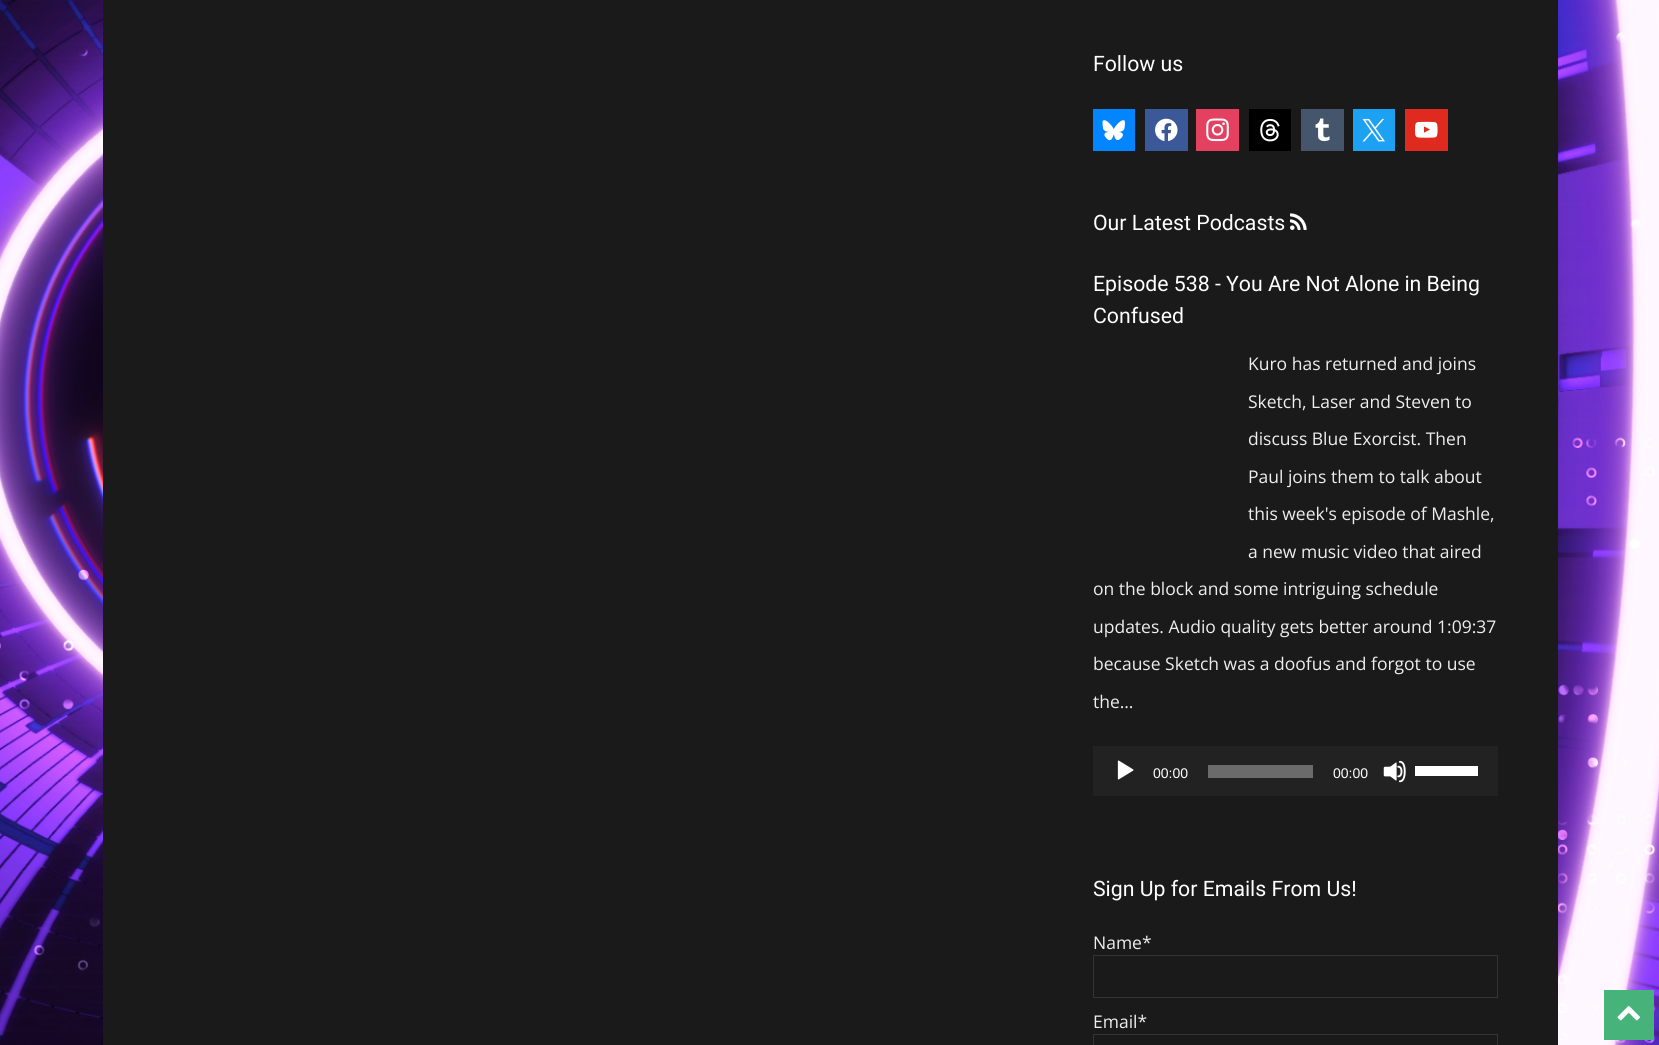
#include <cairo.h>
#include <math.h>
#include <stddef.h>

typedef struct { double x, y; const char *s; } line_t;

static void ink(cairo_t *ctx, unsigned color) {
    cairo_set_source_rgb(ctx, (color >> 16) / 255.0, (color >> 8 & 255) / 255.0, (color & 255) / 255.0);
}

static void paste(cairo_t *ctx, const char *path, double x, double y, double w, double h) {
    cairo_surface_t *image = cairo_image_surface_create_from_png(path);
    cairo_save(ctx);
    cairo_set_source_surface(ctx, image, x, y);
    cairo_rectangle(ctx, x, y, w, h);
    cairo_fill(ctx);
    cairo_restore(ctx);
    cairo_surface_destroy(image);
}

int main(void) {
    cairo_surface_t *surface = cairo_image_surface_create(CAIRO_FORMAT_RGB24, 1659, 1045);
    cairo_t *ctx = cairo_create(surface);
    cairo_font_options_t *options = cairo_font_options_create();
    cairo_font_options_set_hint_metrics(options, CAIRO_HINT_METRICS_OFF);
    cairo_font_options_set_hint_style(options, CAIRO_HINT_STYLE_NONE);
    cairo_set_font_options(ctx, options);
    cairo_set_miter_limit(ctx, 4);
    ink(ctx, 0xFFFFFF);
    cairo_paint(ctx);
    paste(ctx, "media/1.png", 0, 0, 1659, 1045);
    ink(ctx, 0x1A1A1A);
    cairo_rectangle(ctx, 103, 0, 1455, 1045);
    cairo_fill(ctx);
    cairo_select_font_face(ctx, "Roboto", CAIRO_FONT_SLANT_NORMAL, CAIRO_FONT_WEIGHT_NORMAL);
    cairo_set_font_size(ctx, 21.25);
    ink(ctx, 0xFFFFFF);
    cairo_move_to(ctx, 1093, 71);
    cairo_show_text(ctx, "Follow us");
    ink(ctx, 0x0285FF);
    cairo_rectangle(ctx, 1093, 109, 42, 42);
    cairo_fill(ctx);
    paste(ctx, "media/2.png", 1102, 120, 23, 21);
    ink(ctx, 0x3B5998);
    cairo_rectangle(ctx, 1145, 109, 43, 42);
    cairo_fill(ctx);
    paste(ctx, "media/3.png", 1155, 118, 23, 23);
    ink(ctx, 0xE4405F);
    cairo_rectangle(ctx, 1196, 109, 43, 42);
    cairo_fill(ctx);
    paste(ctx, "media/4.png", 1206, 118, 23, 24);
    ink(ctx, 0x000000);
    cairo_rectangle(ctx, 1249, 109, 42, 42);
    cairo_fill(ctx);
    paste(ctx, "media/5.png", 1260, 118, 20, 24);
    ink(ctx, 0x45556C);
    cairo_rectangle(ctx, 1301, 109, 43, 42);
    cairo_fill(ctx);
    paste(ctx, "media/6.png", 1315, 118, 15, 24);
    ink(ctx, 0x1DA1F2);
    cairo_rectangle(ctx, 1353, 109, 42, 42);
    cairo_fill(ctx);
    paste(ctx, "media/7.png", 1362, 118, 23, 24);
    ink(ctx, 0xE02A20);
    cairo_rectangle(ctx, 1405, 109, 43, 42);
    cairo_fill(ctx);
    paste(ctx, "media/8.png", 1415, 121, 23, 17);
    ink(ctx, 0xFFFFFF);
    cairo_move_to(ctx, 1093, 230);
    cairo_show_text(ctx, "Our Latest Podcasts");
    paste(ctx, "media/9.png", 1290, 213, 17, 17);
    cairo_move_to(ctx, 1093, 291);
    cairo_show_text(ctx, "Episode 538 - You Are Not Alone in Being");
    cairo_move_to(ctx, 1093, 323);
    cairo_show_text(ctx, "Confused");
    cairo_select_font_face(ctx, "Open Sans", CAIRO_FONT_SLANT_NORMAL, CAIRO_FONT_WEIGHT_NORMAL);
    cairo_set_font_size(ctx, 17.5);
    ink(ctx, 0xEEEEEE);
    {
        static const line_t items[] = {
            {1248, 370, "Kuro has returned and joins"},
            {1248, 408, "Sketch, Laser and Steven to"},
            {1248, 445, "discuss Blue Exorcist. Then"},
            {1248, 483, "Paul joins them to talk about"},
            {1248, 520, "this week's episode of Mashle,"},
            {1248, 558, "a new music video that aired"},
            {1093, 595, "on the block and some intriguing schedule"},
            {1093, 633, "updates. Audio quality gets better around 1:09:37"},
            {1093, 670, "because Sketch was a doofus and forgot to use"},
            {1093, 708, "the…"},
        };
        for (size_t i = 0; i < sizeof items / sizeof *items; i++) {
            cairo_move_to(ctx, items[i].x, items[i].y);
            cairo_show_text(ctx, items[i].s);
        }
    }
    ink(ctx, 0x222222);
    cairo_rectangle(ctx, 1093, 746, 405, 50);
    cairo_fill(ctx);
    paste(ctx, "media/10.png", 1117, 760, 17, 20);
    cairo_select_font_face(ctx, "Liberation Sans", CAIRO_FONT_SLANT_NORMAL, CAIRO_FONT_WEIGHT_NORMAL);
    cairo_set_font_size(ctx, 14);
    ink(ctx, 0xFFFFFF);
    cairo_move_to(ctx, 1153, 778);
    cairo_show_text(ctx, "00:00");
    ink(ctx, 0x6B6B6B);
    cairo_rectangle(ctx, 1208, 765, 105, 13);
    cairo_fill(ctx);
    ink(ctx, 0xFFFFFF);
    cairo_move_to(ctx, 1333, 778);
    cairo_show_text(ctx, "00:00");
    paste(ctx, "media/11.png", 1383, 760, 23, 23);
    cairo_rectangle(ctx, 1415, 766, 63, 10);
    cairo_fill(ctx);
    cairo_select_font_face(ctx, "Roboto", CAIRO_FONT_SLANT_NORMAL, CAIRO_FONT_WEIGHT_NORMAL);
    cairo_set_font_size(ctx, 21.25);
    cairo_move_to(ctx, 1093, 896);
    cairo_show_text(ctx, "Sign Up for Emails From Us!");
    cairo_select_font_face(ctx, "Open Sans", CAIRO_FONT_SLANT_NORMAL, CAIRO_FONT_WEIGHT_NORMAL);
    cairo_set_font_size(ctx, 17.5);
    ink(ctx, 0xEEEEEE);
    cairo_move_to(ctx, 1093, 949);
    cairo_show_text(ctx, "Name*");
    cairo_rectangle(ctx, 1093.5, 955.5, 404, 42);
    ink(ctx, 0x333333);
    cairo_set_line_width(ctx, 1);
    cairo_stroke(ctx);
    ink(ctx, 0xEEEEEE);
    cairo_move_to(ctx, 1093, 1028);
    cairo_show_text(ctx, "Email*");
    cairo_rectangle(ctx, 1093.5, 1034.5, 404, 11);
    ink(ctx, 0x333333);
    cairo_stroke(ctx);
    ink(ctx, 0x46B37A);
    cairo_rectangle(ctx, 1604, 990, 50, 50);
    cairo_fill(ctx);
    paste(ctx, "media/12.png", 1617, 1006, 23, 15);
    cairo_surface_write_to_png(surface, "image.png");
    cairo_font_options_destroy(options);
    cairo_destroy(ctx);
    cairo_surface_destroy(surface);
    return 0;
}
